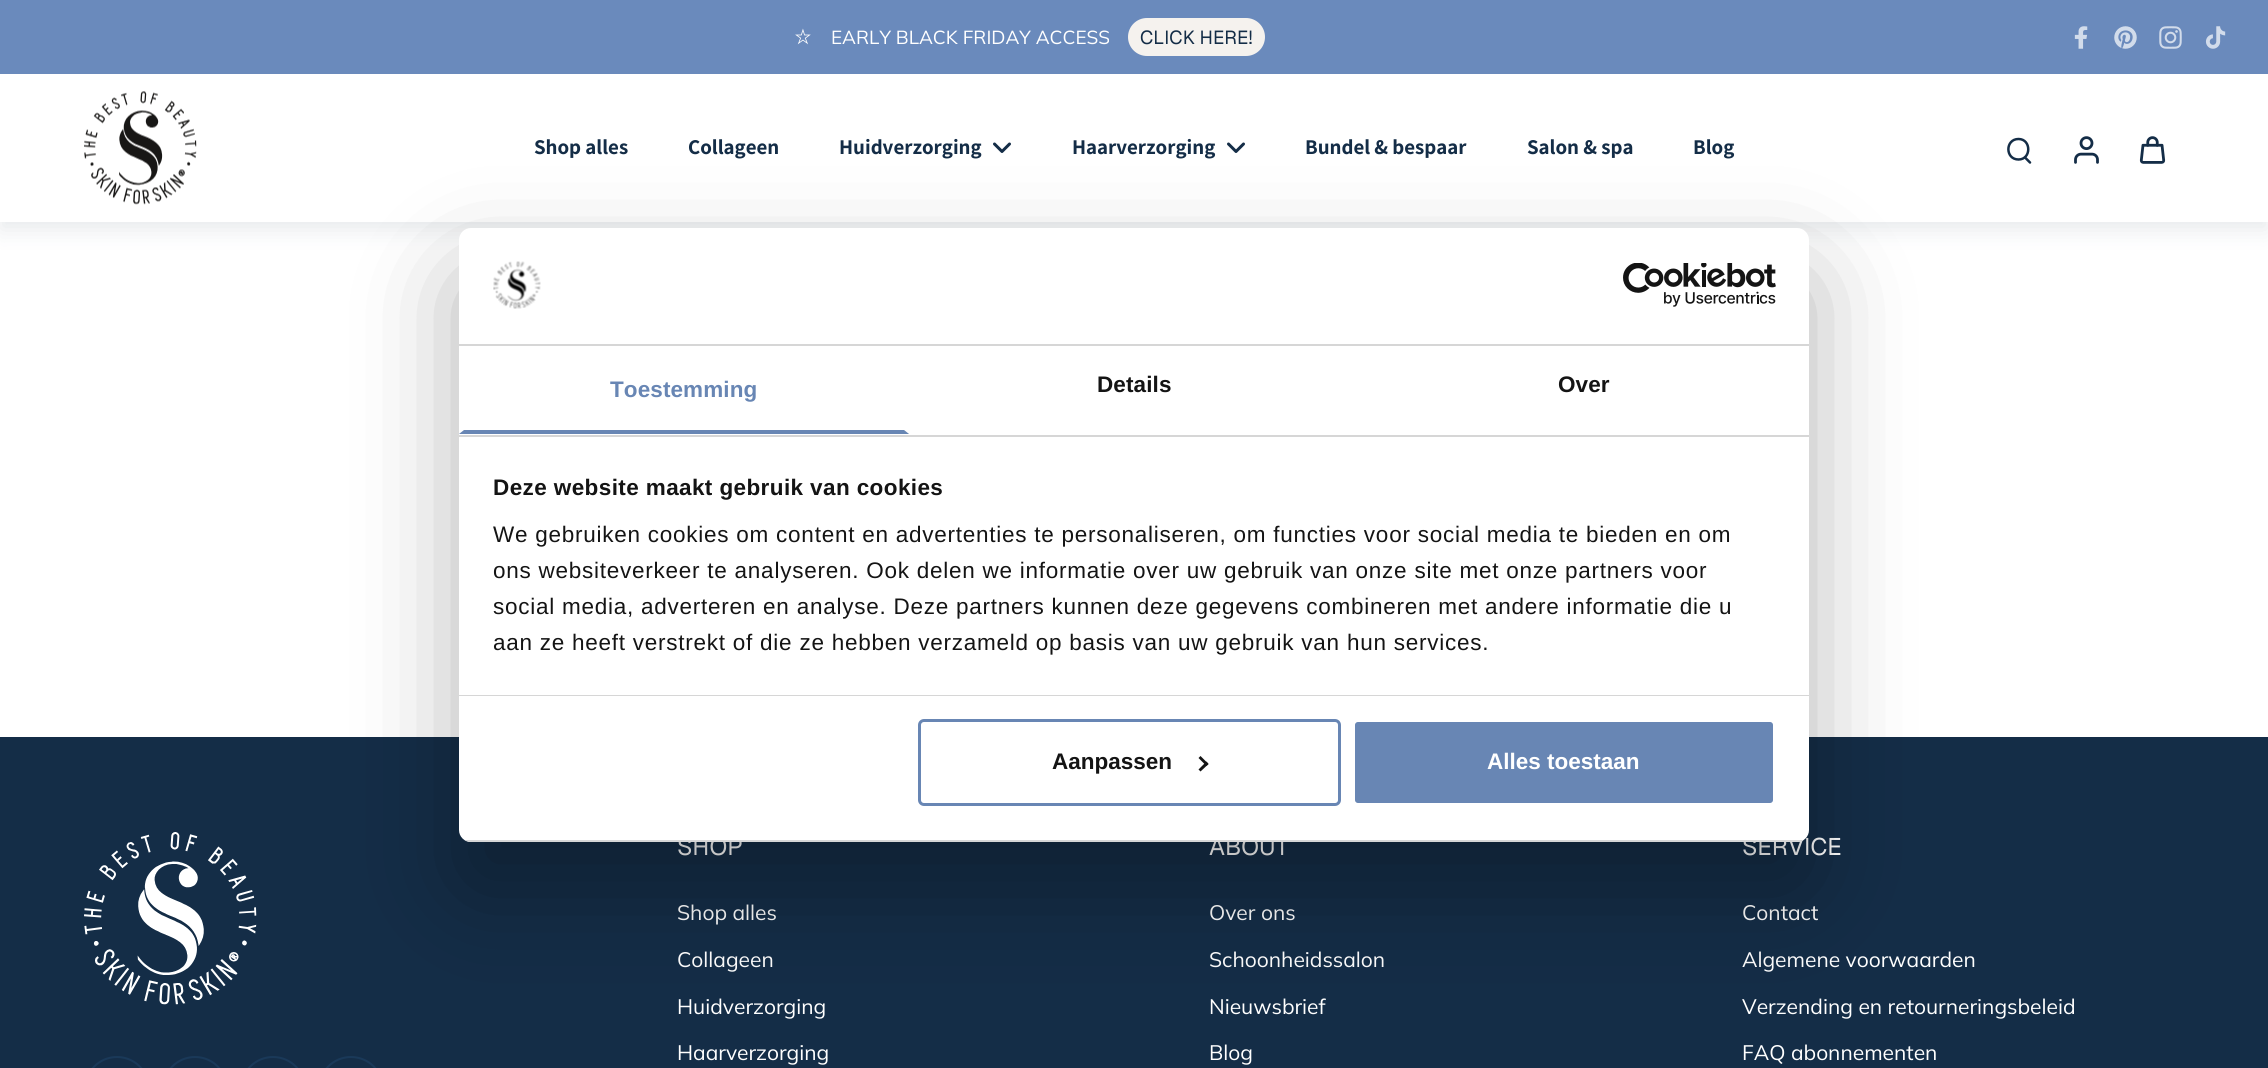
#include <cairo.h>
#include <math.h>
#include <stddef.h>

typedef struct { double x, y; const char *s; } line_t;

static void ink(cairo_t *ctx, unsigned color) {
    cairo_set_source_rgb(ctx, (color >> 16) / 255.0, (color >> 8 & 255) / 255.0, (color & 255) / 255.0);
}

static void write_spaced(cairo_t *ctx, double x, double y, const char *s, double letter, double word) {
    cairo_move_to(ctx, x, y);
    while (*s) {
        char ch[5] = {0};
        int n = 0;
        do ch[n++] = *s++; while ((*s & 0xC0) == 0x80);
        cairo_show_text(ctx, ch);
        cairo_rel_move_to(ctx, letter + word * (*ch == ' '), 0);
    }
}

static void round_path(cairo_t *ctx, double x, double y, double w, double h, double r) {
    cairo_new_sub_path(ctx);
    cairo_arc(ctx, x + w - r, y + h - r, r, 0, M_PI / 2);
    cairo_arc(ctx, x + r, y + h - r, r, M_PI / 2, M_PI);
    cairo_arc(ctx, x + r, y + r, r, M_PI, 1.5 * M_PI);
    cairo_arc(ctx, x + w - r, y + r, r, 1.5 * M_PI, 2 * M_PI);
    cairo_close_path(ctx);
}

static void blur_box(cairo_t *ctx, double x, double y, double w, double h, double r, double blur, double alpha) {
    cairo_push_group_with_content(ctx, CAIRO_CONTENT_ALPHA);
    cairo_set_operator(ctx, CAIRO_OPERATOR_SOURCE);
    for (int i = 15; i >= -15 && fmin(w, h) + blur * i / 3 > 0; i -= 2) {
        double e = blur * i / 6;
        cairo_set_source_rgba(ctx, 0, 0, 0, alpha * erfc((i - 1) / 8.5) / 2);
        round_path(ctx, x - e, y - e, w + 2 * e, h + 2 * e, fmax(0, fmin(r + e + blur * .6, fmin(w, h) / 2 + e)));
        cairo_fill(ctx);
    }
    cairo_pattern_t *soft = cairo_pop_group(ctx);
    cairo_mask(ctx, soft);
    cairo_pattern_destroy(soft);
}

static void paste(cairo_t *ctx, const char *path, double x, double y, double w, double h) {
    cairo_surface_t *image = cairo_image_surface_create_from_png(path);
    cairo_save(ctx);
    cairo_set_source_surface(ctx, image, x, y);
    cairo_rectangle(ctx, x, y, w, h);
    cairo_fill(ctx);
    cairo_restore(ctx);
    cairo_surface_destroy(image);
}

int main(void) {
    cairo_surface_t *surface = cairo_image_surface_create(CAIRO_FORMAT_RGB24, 2268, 1068);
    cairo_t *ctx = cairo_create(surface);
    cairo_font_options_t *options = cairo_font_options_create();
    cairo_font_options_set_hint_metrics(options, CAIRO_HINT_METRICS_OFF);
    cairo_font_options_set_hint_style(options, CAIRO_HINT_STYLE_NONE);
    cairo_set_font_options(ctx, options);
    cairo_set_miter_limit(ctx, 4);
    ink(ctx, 0xFFFFFF);
    cairo_paint(ctx);
    ink(ctx, 0x142D47);
    blur_box(ctx, 0, 81, 2268, 149, 0, 11, 0.1);
    ink(ctx, 0x6A8ABC);
    cairo_rectangle(ctx, 0, 0, 2268, 74);
    cairo_fill(ctx);
    paste(ctx, "media/1.png", 795, 28, 16, 17);
    cairo_select_font_face(ctx, "Muli", CAIRO_FONT_SLANT_NORMAL, CAIRO_FONT_WEIGHT_NORMAL);
    cairo_set_font_size(ctx, 18.9);
    ink(ctx, 0xFFFFFF);
    cairo_move_to(ctx, 831, 44);
    cairo_show_text(ctx, "EARLY BLACK FRIDAY ACCESS");
    ink(ctx, 0xF5F2EE);
    round_path(ctx, 1128, 18, 137, 38, 19);
    cairo_fill(ctx);
    cairo_select_font_face(ctx, "Geist", CAIRO_FONT_SLANT_NORMAL, CAIRO_FONT_WEIGHT_NORMAL);
    ink(ctx, 0x142D47);
    cairo_move_to(ctx, 1140, 44);
    cairo_show_text(ctx, "CLICK HERE!");
    paste(ctx, "media/2.png", 2074, 26, 14, 23);
    paste(ctx, "media/3.png", 2114, 26, 23, 23);
    paste(ctx, "media/4.png", 2159, 26, 23, 23);
    paste(ctx, "media/5.png", 2205, 26, 21, 23);
    ink(ctx, 0xFFFFFF);
    cairo_rectangle(ctx, 0, 74, 2268, 148);
    cairo_fill(ctx);
    paste(ctx, "media/6.png", 84, 91, 113, 114);
    cairo_select_font_face(ctx, "Assistant", CAIRO_FONT_SLANT_NORMAL, CAIRO_FONT_WEIGHT_BOLD);
    cairo_set_font_size(ctx, 21);
    ink(ctx, 0x142D47);
    {
        static const line_t items[] = {
            {534, 154, "Shop alles"},
            {688, 154, "Collageen"},
            {839, 154, "Huidverzorging"},
        };
        for (size_t i = 0; i < sizeof items / sizeof *items; i++) {
            cairo_move_to(ctx, items[i].x, items[i].y);
            cairo_show_text(ctx, items[i].s);
        }
    }
    cairo_new_path(ctx);
    cairo_move_to(ctx, 994.5, 144);
    cairo_line_to(ctx, 1002, 151.5);
    cairo_line_to(ctx, 1009.5, 144);
    cairo_set_line_width(ctx, 3);
    cairo_set_line_cap(ctx, CAIRO_LINE_CAP_ROUND);
    cairo_set_line_join(ctx, CAIRO_LINE_JOIN_ROUND);
    cairo_stroke(ctx);
    cairo_move_to(ctx, 1072, 154);
    cairo_show_text(ctx, "Haarverzorging");
    cairo_new_path(ctx);
    cairo_move_to(ctx, 1228.5, 144);
    cairo_line_to(ctx, 1236, 151.5);
    cairo_line_to(ctx, 1243.5, 144);
    cairo_stroke(ctx);
    {
        static const line_t items[] = {
            {1305, 154, "Bundel & bespaar"},
            {1527, 154, "Salon & spa"},
            {1693, 154, "Blog"},
        };
        for (size_t i = 0; i < sizeof items / sizeof *items; i++) {
            cairo_move_to(ctx, items[i].x, items[i].y);
            cairo_show_text(ctx, items[i].s);
        }
    }
    cairo_new_path(ctx);
    cairo_move_to(ctx, 2018.5, 159.5);
    cairo_curve_to(ctx, 2031.5, 159.5, 2031.5, 139, 2018.5, 139);
    cairo_curve_to(ctx, 2005, 139, 2005, 159.5, 2018.5, 159.5);
    cairo_close_path(ctx);
    cairo_set_line_width(ctx, 2.5);
    cairo_set_line_cap(ctx, CAIRO_LINE_CAP_BUTT);
    cairo_set_line_join(ctx, CAIRO_LINE_JOIN_MITER);
    cairo_stroke(ctx);
    cairo_new_path(ctx);
    cairo_move_to(ctx, 2025, 157.5);
    cairo_line_to(ctx, 2030, 162.5);
    cairo_set_line_cap(ctx, CAIRO_LINE_CAP_ROUND);
    cairo_stroke(ctx);
    paste(ctx, "media/7.png", 2074, 136, 25, 28);
    paste(ctx, "media/8.png", 2139, 136, 27, 28);
    cairo_rectangle(ctx, 0, 737, 2268, 331);
    cairo_fill(ctx);
    paste(ctx, "media/9.png", 84, 832, 173, 173);
    round_path(ctx, 85, 1057, 64, 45, 32);
    ink(ctx, 0x1A3959);
    cairo_set_line_width(ctx, 2);
    cairo_set_line_cap(ctx, CAIRO_LINE_CAP_BUTT);
    cairo_stroke(ctx);
    round_path(ctx, 163, 1057, 64, 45, 32);
    cairo_stroke(ctx);
    round_path(ctx, 241, 1057, 64, 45, 32);
    cairo_stroke(ctx);
    round_path(ctx, 319, 1057, 64, 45, 32);
    cairo_stroke(ctx);
    cairo_select_font_face(ctx, "Geist", CAIRO_FONT_SLANT_NORMAL, CAIRO_FONT_WEIGHT_NORMAL);
    cairo_set_font_size(ctx, 24);
    ink(ctx, 0xFFFFFF);
    cairo_move_to(ctx, 677, 855);
    cairo_show_text(ctx, "SHOP");
    cairo_select_font_face(ctx, "Muli", CAIRO_FONT_SLANT_NORMAL, CAIRO_FONT_WEIGHT_NORMAL);
    cairo_set_font_size(ctx, 21);
    {
        static const line_t items[] = {
            {677, 920, "Shop alles"},
            {677, 967, "Collageen"},
            {677, 1014, "Huidverzorging"},
            {677, 1060, "Haarverzorging"},
        };
        for (size_t i = 0; i < sizeof items / sizeof *items; i++) {
            cairo_move_to(ctx, items[i].x, items[i].y);
            cairo_show_text(ctx, items[i].s);
        }
    }
    cairo_select_font_face(ctx, "Geist", CAIRO_FONT_SLANT_NORMAL, CAIRO_FONT_WEIGHT_NORMAL);
    cairo_set_font_size(ctx, 24);
    cairo_move_to(ctx, 1209, 855);
    cairo_show_text(ctx, "ABOUT");
    cairo_select_font_face(ctx, "Muli", CAIRO_FONT_SLANT_NORMAL, CAIRO_FONT_WEIGHT_NORMAL);
    cairo_set_font_size(ctx, 21);
    {
        static const line_t items[] = {
            {1209, 920, "Over ons"},
            {1209, 967, "Schoonheidssalon"},
            {1209, 1014, "Nieuwsbrief"},
            {1209, 1060, "Blog"},
        };
        for (size_t i = 0; i < sizeof items / sizeof *items; i++) {
            cairo_move_to(ctx, items[i].x, items[i].y);
            cairo_show_text(ctx, items[i].s);
        }
    }
    cairo_select_font_face(ctx, "Geist", CAIRO_FONT_SLANT_NORMAL, CAIRO_FONT_WEIGHT_NORMAL);
    cairo_set_font_size(ctx, 24);
    cairo_move_to(ctx, 1742, 855);
    cairo_show_text(ctx, "SERVICE");
    cairo_select_font_face(ctx, "Muli", CAIRO_FONT_SLANT_NORMAL, CAIRO_FONT_WEIGHT_NORMAL);
    cairo_set_font_size(ctx, 21);
    {
        static const line_t items[] = {
            {1742, 920, "Contact"},
            {1742, 967, "Algemene voorwaarden"},
            {1742, 1014, "Verzending en retourneringsbeleid"},
            {1742, 1060, "FAQ abonnementen"},
        };
        for (size_t i = 0; i < sizeof items / sizeof *items; i++) {
            cairo_move_to(ctx, items[i].x, items[i].y);
            cairo_show_text(ctx, items[i].s);
        }
    }
    ink(ctx, 0x000000);
    blur_box(ctx, 459, 276, 1350, 614, 12, 51, 0.3);
    ink(ctx, 0xFFFFFF);
    round_path(ctx, 459, 228, 1350, 614, 12);
    cairo_fill(ctx);
    ink(ctx, 0xD6D6D6);
    cairo_rectangle(ctx, 459, 344, 1350, 2);
    cairo_fill(ctx);
    paste(ctx, "media/10.png", 493, 261, 48, 48);
    paste(ctx, "media/11.png", 1623, 263, 153, 44);
    cairo_rectangle(ctx, 459, 435, 1350, 2);
    cairo_fill(ctx);
    ink(ctx, 0x6886B4);
    cairo_new_path(ctx);
    cairo_move_to(ctx, 909, 434);
    cairo_line_to(ctx, 459, 434);
    cairo_line_to(ctx, 464, 430);
    cairo_line_to(ctx, 904, 430);
    cairo_close_path(ctx);
    cairo_fill(ctx);
    cairo_select_font_face(ctx, "Liberation Sans", CAIRO_FONT_SLANT_NORMAL, CAIRO_FONT_WEIGHT_BOLD);
    cairo_set_font_size(ctx, 22.5);
    write_spaced(ctx, 610, 397, "Toestemming", 0.1, 0);
    ink(ctx, 0x141414);
    write_spaced(ctx, 1097, 392, "Details", 0.1, 0);
    write_spaced(ctx, 1558, 392, "Over", 0.1, 0);
    ink(ctx, 0xD6D6D6);
    cairo_rectangle(ctx, 459, 695, 1350, 1);
    cairo_fill(ctx);
    ink(ctx, 0x141414);
    write_spaced(ctx, 493, 495, "Deze website maakt gebruik van cookies", 0.4, 0);
    cairo_select_font_face(ctx, "Liberation Sans", CAIRO_FONT_SLANT_NORMAL, CAIRO_FONT_WEIGHT_NORMAL);
    {
        static const line_t items[] = {
            {493, 542, "We gebruiken cookies om content en advertenties te personaliseren, om functies voor social media te bieden en om"},
            {493, 578, "ons websiteverkeer te analyseren. Ook delen we informatie over uw gebruik van onze site met onze partners voor"},
            {493, 614, "social media, adverteren en analyse. Deze partners kunnen deze gegevens combineren met andere informatie die u"},
            {493, 650, "aan ze heeft verstrekt of die ze hebben verzameld op basis van uw gebruik van hun services."},
        };
        for (size_t i = 0; i < sizeof items / sizeof *items; i++) {
            write_spaced(ctx, items[i].x, items[i].y, items[i].s, 0.75, 0);
        }
    }
    cairo_save(ctx);
    round_path(ctx, 459, 228, 1350, 614, 12);
    cairo_clip(ctx);
    ink(ctx, 0xD6D6D6);
    cairo_rectangle(ctx, 459, 840, 1350, 2);
    cairo_fill(ctx);
    cairo_restore(ctx);
    round_path(ctx, 919.5, 720.5, 420, 84, 4.5);
    ink(ctx, 0x6886B4);
    cairo_set_line_width(ctx, 3);
    cairo_stroke(ctx);
    cairo_select_font_face(ctx, "Liberation Sans", CAIRO_FONT_SLANT_NORMAL, CAIRO_FONT_WEIGHT_BOLD);
    ink(ctx, 0x141414);
    cairo_move_to(ctx, 1052, 769);
    cairo_show_text(ctx, "Aanpassen");
    cairo_new_path(ctx);
    cairo_move_to(ctx, 1200.5, 756);
    cairo_line_to(ctx, 1208.5, 764);
    cairo_line_to(ctx, 1206.5, 766);
    cairo_line_to(ctx, 1198.5, 758);
    cairo_close_path(ctx);
    cairo_fill(ctx);
    cairo_new_path(ctx);
    cairo_move_to(ctx, 1206.5, 761.5);
    cairo_line_to(ctx, 1208.5, 764);
    cairo_line_to(ctx, 1200.5, 771.5);
    cairo_line_to(ctx, 1198.5, 769.5);
    cairo_close_path(ctx);
    cairo_fill(ctx);
    ink(ctx, 0x6886B4);
    round_path(ctx, 1353.5, 720.5, 421, 84, 4.5);
    cairo_fill_preserve(ctx);
    ink(ctx, 0xFFFFFF);
    cairo_stroke(ctx);
    cairo_move_to(ctx, 1487, 769);
    cairo_show_text(ctx, "Alles toestaan");
    cairo_surface_write_to_png(surface, "image.png");
    cairo_font_options_destroy(options);
    cairo_destroy(ctx);
    cairo_surface_destroy(surface);
    return 0;
}
